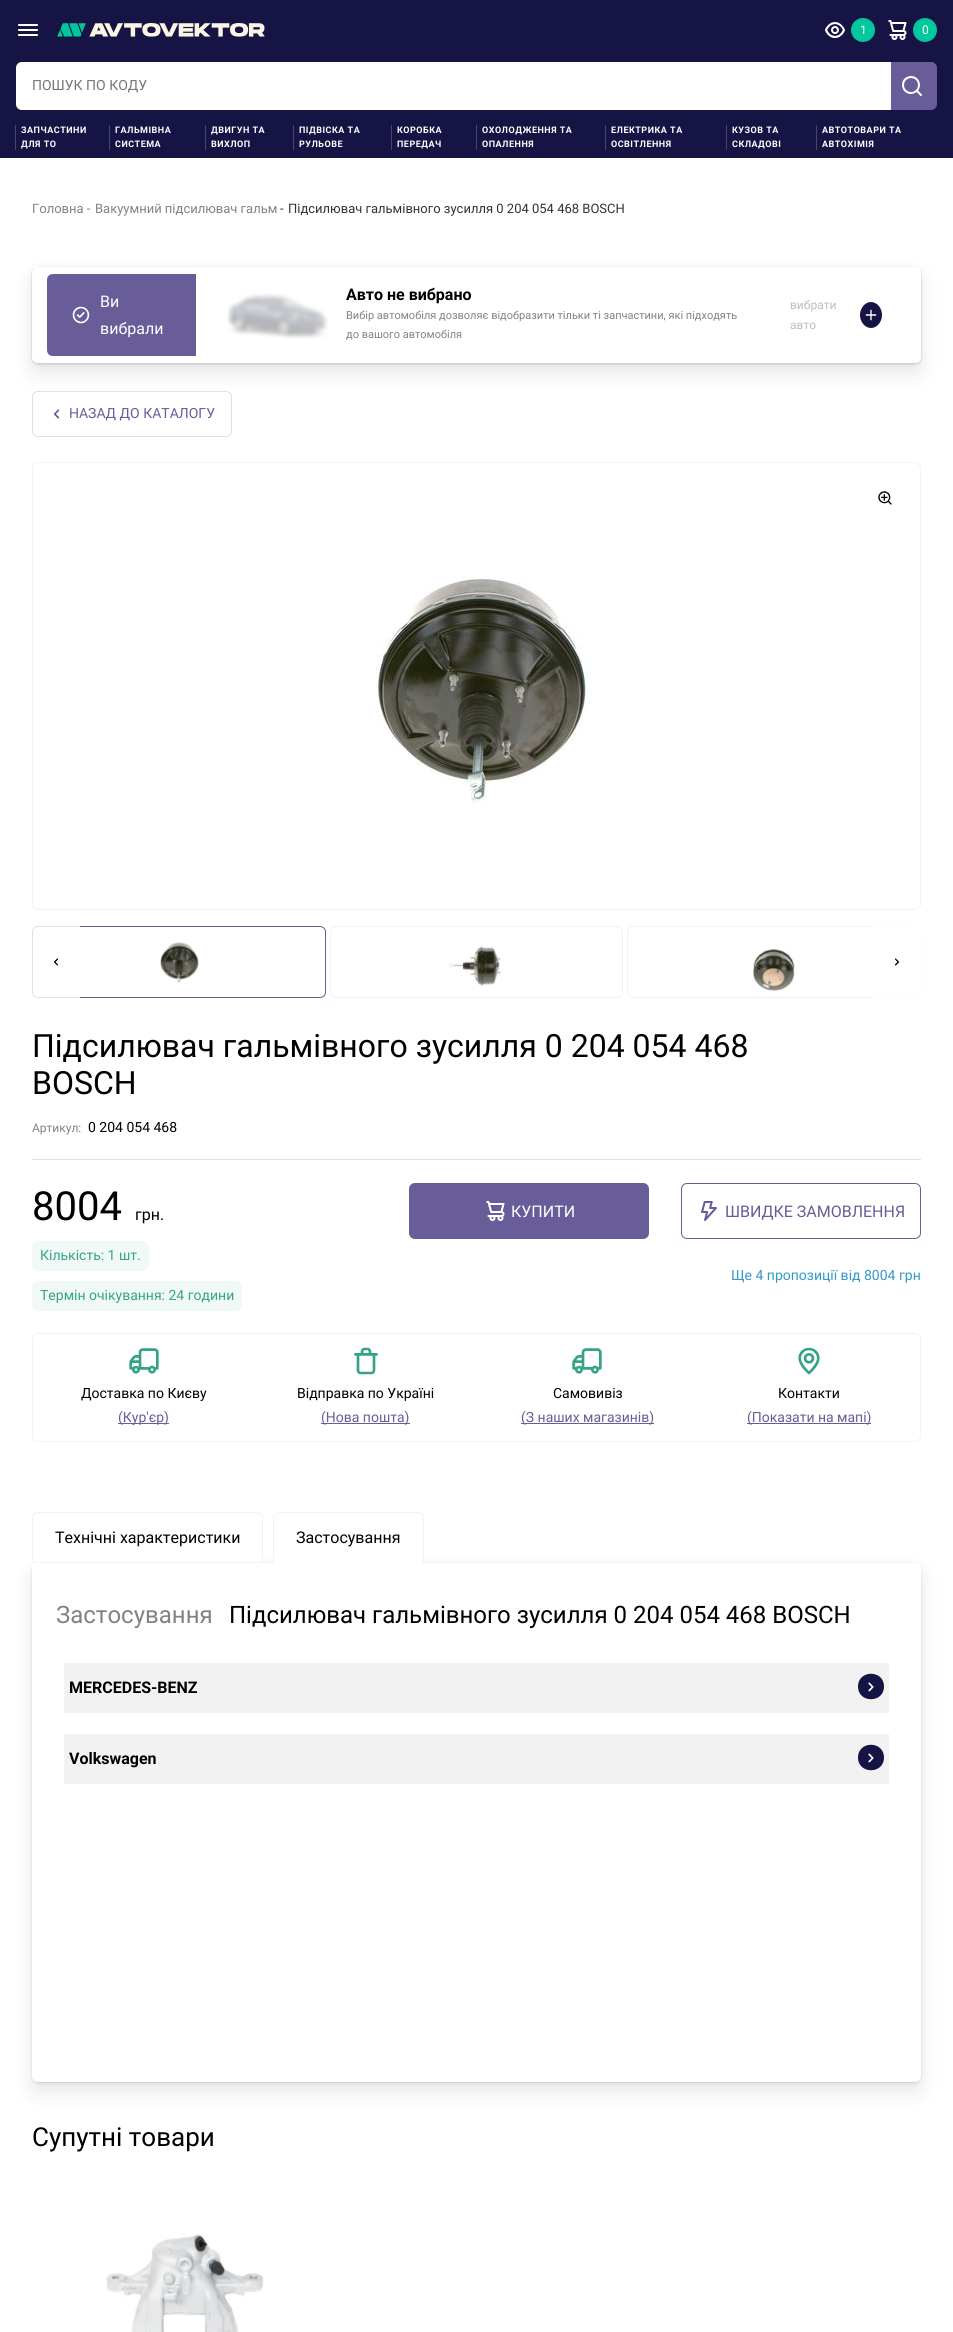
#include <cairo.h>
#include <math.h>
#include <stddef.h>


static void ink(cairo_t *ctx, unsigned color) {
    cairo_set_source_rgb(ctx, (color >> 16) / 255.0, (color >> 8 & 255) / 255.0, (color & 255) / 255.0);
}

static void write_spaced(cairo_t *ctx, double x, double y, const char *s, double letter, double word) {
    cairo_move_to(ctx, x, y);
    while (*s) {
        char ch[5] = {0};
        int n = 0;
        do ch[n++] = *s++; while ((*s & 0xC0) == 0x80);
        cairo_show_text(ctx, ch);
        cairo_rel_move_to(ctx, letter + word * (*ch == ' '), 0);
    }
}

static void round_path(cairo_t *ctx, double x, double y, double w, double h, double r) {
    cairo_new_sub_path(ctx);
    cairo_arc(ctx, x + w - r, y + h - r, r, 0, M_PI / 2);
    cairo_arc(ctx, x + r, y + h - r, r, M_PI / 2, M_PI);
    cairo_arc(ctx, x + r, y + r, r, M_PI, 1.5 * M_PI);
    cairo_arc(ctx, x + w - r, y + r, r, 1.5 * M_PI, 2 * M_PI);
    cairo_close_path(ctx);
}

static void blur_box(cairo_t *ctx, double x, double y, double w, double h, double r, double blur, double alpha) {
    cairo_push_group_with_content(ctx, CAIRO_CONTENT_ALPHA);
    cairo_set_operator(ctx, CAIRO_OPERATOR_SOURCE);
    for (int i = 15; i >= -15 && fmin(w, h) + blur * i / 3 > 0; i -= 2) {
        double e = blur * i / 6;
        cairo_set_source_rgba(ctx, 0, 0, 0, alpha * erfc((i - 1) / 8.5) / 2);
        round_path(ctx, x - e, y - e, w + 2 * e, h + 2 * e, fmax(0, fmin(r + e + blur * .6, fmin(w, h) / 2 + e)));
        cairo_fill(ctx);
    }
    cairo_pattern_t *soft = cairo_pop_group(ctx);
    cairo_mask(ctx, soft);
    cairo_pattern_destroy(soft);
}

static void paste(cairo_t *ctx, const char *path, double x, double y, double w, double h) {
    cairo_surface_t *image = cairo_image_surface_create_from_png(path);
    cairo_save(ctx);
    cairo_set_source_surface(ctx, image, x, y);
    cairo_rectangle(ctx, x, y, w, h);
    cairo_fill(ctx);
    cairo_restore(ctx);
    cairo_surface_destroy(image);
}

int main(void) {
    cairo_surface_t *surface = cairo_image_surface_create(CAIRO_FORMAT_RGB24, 953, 2332);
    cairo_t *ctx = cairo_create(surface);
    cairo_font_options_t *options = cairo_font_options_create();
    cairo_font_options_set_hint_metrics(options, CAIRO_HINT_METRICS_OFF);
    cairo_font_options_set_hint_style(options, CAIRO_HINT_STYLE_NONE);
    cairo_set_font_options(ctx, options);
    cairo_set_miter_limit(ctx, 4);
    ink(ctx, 0xFFFFFF);
    cairo_paint(ctx);
    ink(ctx, 0x161445);
    cairo_rectangle(ctx, 0, 0, 953, 158);
    cairo_fill(ctx);
    paste(ctx, "media/1.png", 18, 24, 20, 12);
    paste(ctx, "media/2.png", 57, 23, 208, 14);
    paste(ctx, "media/3.png", 825, 22, 20, 16);
    ink(ctx, 0x00C89C);
    cairo_arc(ctx, 863, 30, 12, 0, 2 * M_PI);
    cairo_fill(ctx);
    cairo_select_font_face(ctx, "Roboto", CAIRO_FONT_SLANT_NORMAL, CAIRO_FONT_WEIGHT_NORMAL);
    cairo_set_font_size(ctx, 12);
    ink(ctx, 0xFFFFFF);
    cairo_move_to(ctx, 860, 34);
    cairo_show_text(ctx, "1");
    paste(ctx, "media/4.png", 888, 20, 19, 20);
    ink(ctx, 0x00C89C);
    cairo_arc(ctx, 925, 30, 12, 0, 2 * M_PI);
    cairo_fill(ctx);
    ink(ctx, 0xFFFFFF);
    cairo_move_to(ctx, 922, 34);
    cairo_show_text(ctx, "0");
    cairo_new_path(ctx);
    cairo_move_to(ctx, 22, 62);
    cairo_line_to(ctx, 891, 62);
    cairo_line_to(ctx, 891, 110);
    cairo_line_to(ctx, 22, 110);
    cairo_curve_to(ctx, 18.5, 110, 16, 107.5, 16, 104);
    cairo_line_to(ctx, 16, 68);
    cairo_curve_to(ctx, 16, 64.5, 18.5, 62, 22, 62);
    cairo_close_path(ctx);
    cairo_fill(ctx);
    cairo_set_font_size(ctx, 14);
    ink(ctx, 0x757575);
    cairo_move_to(ctx, 32, 90);
    cairo_show_text(ctx, "ПОШУК ПО КОДУ");
    ink(ctx, 0x685D98);
    cairo_new_path(ctx);
    cairo_move_to(ctx, 891.5, 62.5);
    cairo_line_to(ctx, 931, 62.5);
    cairo_curve_to(ctx, 934, 62.5, 936.5, 65, 936.5, 68);
    cairo_line_to(ctx, 936.5, 104);
    cairo_curve_to(ctx, 936.5, 107, 934, 109.5, 931, 109.5);
    cairo_line_to(ctx, 891.5, 109.5);
    cairo_close_path(ctx);
    cairo_fill_preserve(ctx);
    cairo_set_line_width(ctx, 1);
    cairo_stroke(ctx);
    paste(ctx, "media/5.png", 902, 76, 20, 20);
    ink(ctx, 0x47456A);
    cairo_rectangle(ctx, 15, 125, 1, 25);
    cairo_fill(ctx);
    cairo_select_font_face(ctx, "Roboto", CAIRO_FONT_SLANT_NORMAL, CAIRO_FONT_WEIGHT_BOLD);
    cairo_set_font_size(ctx, 9);
    ink(ctx, 0xFFFFFF);
    write_spaced(ctx, 21, 133, "ЗАПЧАСТИНИ", 0.5, 0);
    write_spaced(ctx, 21, 147, "ДЛЯ ТО", 0.5, 0);
    ink(ctx, 0x47456A);
    cairo_rectangle(ctx, 109, 125, 1, 25);
    cairo_fill(ctx);
    ink(ctx, 0xFFFFFF);
    write_spaced(ctx, 115, 133, "ГАЛЬМІВНА", 0.5, 0);
    write_spaced(ctx, 115, 147, "СИСТЕМА", 0.5, 0);
    ink(ctx, 0x47456A);
    cairo_rectangle(ctx, 205, 125, 1, 25);
    cairo_fill(ctx);
    ink(ctx, 0xFFFFFF);
    write_spaced(ctx, 211, 133, "ДВИГУН ТА", 0.5, 0);
    write_spaced(ctx, 211, 147, "ВИХЛОП", 0.5, 0);
    ink(ctx, 0x47456A);
    cairo_rectangle(ctx, 293, 125, 1, 25);
    cairo_fill(ctx);
    ink(ctx, 0xFFFFFF);
    write_spaced(ctx, 299, 133, "ПІДВІСКА ТА", 0.5, 0);
    write_spaced(ctx, 299, 147, "РУЛЬОВЕ", 0.5, 0);
    ink(ctx, 0x47456A);
    cairo_rectangle(ctx, 391, 125, 1, 25);
    cairo_fill(ctx);
    ink(ctx, 0xFFFFFF);
    write_spaced(ctx, 397, 133, "КОРОБКА", 0.5, 0);
    write_spaced(ctx, 397, 147, "ПЕРЕДАЧ", 0.5, 0);
    ink(ctx, 0x47456A);
    cairo_rectangle(ctx, 476, 125, 1, 25);
    cairo_fill(ctx);
    ink(ctx, 0xFFFFFF);
    write_spaced(ctx, 482, 133, "ОХОЛОДЖЕННЯ ТА", 0.5, 0);
    write_spaced(ctx, 482, 147, "ОПАЛЕННЯ", 0.5, 0);
    ink(ctx, 0x47456A);
    cairo_rectangle(ctx, 605, 125, 1, 25);
    cairo_fill(ctx);
    ink(ctx, 0xFFFFFF);
    write_spaced(ctx, 611, 133, "ЕЛЕКТРИКА ТА", 0.5, 0);
    write_spaced(ctx, 611, 147, "ОСВІТЛЕННЯ", 0.5, 0);
    ink(ctx, 0x47456A);
    cairo_rectangle(ctx, 726, 125, 1, 25);
    cairo_fill(ctx);
    ink(ctx, 0xFFFFFF);
    write_spaced(ctx, 732, 133, "КУЗОВ ТА", 0.5, 0);
    write_spaced(ctx, 732, 147, "СКЛАДОВІ", 0.5, 0);
    ink(ctx, 0x47456A);
    cairo_rectangle(ctx, 816, 125, 1, 25);
    cairo_fill(ctx);
    ink(ctx, 0xFFFFFF);
    write_spaced(ctx, 822, 133, "АВТОТОВАРИ ТА", 0.5, 0);
    write_spaced(ctx, 822, 147, "АВТОХІМІЯ", 0.5, 0);
    cairo_select_font_face(ctx, "Roboto", CAIRO_FONT_SLANT_NORMAL, CAIRO_FONT_WEIGHT_NORMAL);
    cairo_set_font_size(ctx, 13);
    ink(ctx, 0x828282);
    cairo_move_to(ctx, 32, 213);
    cairo_show_text(ctx, "Головна -");
    cairo_move_to(ctx, 95, 213);
    cairo_show_text(ctx, "Вакуумний підсилювач гальм");
    ink(ctx, 0x333333);
    cairo_move_to(ctx, 280, 213);
    cairo_show_text(ctx, "-");
    cairo_move_to(ctx, 288, 213);
    cairo_show_text(ctx, "Підсилювач гальмівного зусилля 0 204 054 468 BOSCH");
    cairo_save(ctx);
    cairo_set_fill_rule(ctx, CAIRO_FILL_RULE_EVEN_ODD);
    cairo_new_path(ctx);
    cairo_move_to(ctx, 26, 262);
    cairo_line_to(ctx, 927, 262);
    cairo_line_to(ctx, 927, 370);
    cairo_line_to(ctx, 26, 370);
    cairo_close_path(ctx);
    cairo_move_to(ctx, 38, 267);
    cairo_line_to(ctx, 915, 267);
    cairo_curve_to(ctx, 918.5, 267, 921, 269.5, 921, 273);
    cairo_line_to(ctx, 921, 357);
    cairo_curve_to(ctx, 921, 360.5, 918.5, 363, 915, 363);
    cairo_line_to(ctx, 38, 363);
    cairo_curve_to(ctx, 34.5, 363, 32, 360.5, 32, 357);
    cairo_line_to(ctx, 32, 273);
    cairo_curve_to(ctx, 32, 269.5, 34.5, 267, 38, 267);
    cairo_close_path(ctx);
    cairo_clip(ctx);
    ink(ctx, 0x000000);
    blur_box(ctx, 32, 268, 889, 96, 6, 1.5, 0.1);
    cairo_restore(ctx);
    cairo_save(ctx);
    cairo_set_fill_rule(ctx, CAIRO_FILL_RULE_EVEN_ODD);
    cairo_new_path(ctx);
    cairo_move_to(ctx, 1, 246);
    cairo_line_to(ctx, 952, 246);
    cairo_line_to(ctx, 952, 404);
    cairo_line_to(ctx, 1, 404);
    cairo_close_path(ctx);
    cairo_move_to(ctx, 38, 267);
    cairo_line_to(ctx, 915, 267);
    cairo_curve_to(ctx, 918.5, 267, 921, 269.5, 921, 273);
    cairo_line_to(ctx, 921, 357);
    cairo_curve_to(ctx, 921, 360.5, 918.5, 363, 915, 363);
    cairo_line_to(ctx, 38, 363);
    cairo_curve_to(ctx, 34.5, 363, 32, 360.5, 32, 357);
    cairo_line_to(ctx, 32, 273);
    cairo_curve_to(ctx, 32, 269.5, 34.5, 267, 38, 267);
    cairo_close_path(ctx);
    cairo_clip(ctx);
    ink(ctx, 0x000000);
    blur_box(ctx, 32, 277, 889, 96, 6, 10, 0.1);
    cairo_restore(ctx);
    cairo_set_source_rgba(ctx, 0, 0, 0, 0.04);
    cairo_new_path(ctx);
    cairo_move_to(ctx, 38, 267);
    cairo_curve_to(ctx, 34, 267, 31, 270, 31, 274);
    cairo_line_to(ctx, 31, 358);
    cairo_curve_to(ctx, 31, 362, 34, 365, 38, 365);
    cairo_line_to(ctx, 915, 365);
    cairo_curve_to(ctx, 919, 365, 922, 362, 922, 358);
    cairo_line_to(ctx, 922, 274);
    cairo_curve_to(ctx, 922, 270, 919, 267, 915, 267);
    cairo_curve_to(ctx, 918, 267, 921, 270, 921, 273);
    cairo_line_to(ctx, 921, 357);
    cairo_curve_to(ctx, 921, 360, 918, 363, 915, 363);
    cairo_line_to(ctx, 38, 363);
    cairo_curve_to(ctx, 35, 363, 32, 360, 32, 357);
    cairo_line_to(ctx, 32, 273);
    cairo_curve_to(ctx, 32, 270, 35, 267, 38, 267);
    cairo_close_path(ctx);
    cairo_fill(ctx);
    ink(ctx, 0x685D98);
    cairo_new_path(ctx);
    cairo_move_to(ctx, 53, 274);
    cairo_line_to(ctx, 196, 274);
    cairo_line_to(ctx, 196, 356);
    cairo_line_to(ctx, 53, 356);
    cairo_curve_to(ctx, 49.5, 356, 47, 353.5, 47, 350);
    cairo_line_to(ctx, 47, 280);
    cairo_curve_to(ctx, 47, 276.5, 49.5, 274, 53, 274);
    cairo_close_path(ctx);
    cairo_fill(ctx);
    paste(ctx, "media/6.png", 72, 306, 18, 18);
    cairo_set_font_size(ctx, 16);
    ink(ctx, 0xFFFFFF);
    cairo_move_to(ctx, 100, 307);
    cairo_show_text(ctx, "Ви");
    cairo_move_to(ctx, 100, 334);
    cairo_show_text(ctx, "вибрали");
    paste(ctx, "media/7.png", 227, 293, 102, 46);
    cairo_select_font_face(ctx, "Roboto", CAIRO_FONT_SLANT_NORMAL, CAIRO_FONT_WEIGHT_BOLD);
    ink(ctx, 0x000000);
    cairo_move_to(ctx, 346, 300);
    cairo_show_text(ctx, "Авто не вибрано");
    cairo_select_font_face(ctx, "Roboto", CAIRO_FONT_SLANT_NORMAL, CAIRO_FONT_WEIGHT_NORMAL);
    cairo_set_font_size(ctx, 11);
    ink(ctx, 0x828282);
    cairo_move_to(ctx, 346, 319);
    cairo_show_text(ctx, "Вибір автомобіля дозволяє відобразити тільки ті запчастини, які підходять");
    cairo_move_to(ctx, 346, 338);
    cairo_show_text(ctx, "до вашого автомобіля");
    cairo_set_font_size(ctx, 12);
    ink(ctx, 0xBDBDBD);
    cairo_move_to(ctx, 790, 309);
    cairo_show_text(ctx, "вибрати");
    cairo_move_to(ctx, 790, 329);
    cairo_show_text(ctx, "авто");
    ink(ctx, 0x161445);
    cairo_new_path(ctx);
    cairo_move_to(ctx, 871, 302);
    cairo_curve_to(ctx, 877, 302, 882, 308, 882, 315);
    cairo_curve_to(ctx, 882, 322, 877, 328, 871, 328);
    cairo_curve_to(ctx, 865, 328, 860, 322, 860, 315);
    cairo_curve_to(ctx, 860, 308, 865, 302, 871, 302);
    cairo_close_path(ctx);
    cairo_fill(ctx);
    paste(ctx, "media/8.png", 865, 309, 12, 12);
    round_path(ctx, 32.5, 391.5, 199, 45, 5.5);
    ink(ctx, 0xE0E0E0);
    cairo_stroke(ctx);
    paste(ctx, "media/9.png", 53, 409, 7, 10);
    cairo_set_font_size(ctx, 14);
    ink(ctx, 0x685D98);
    cairo_move_to(ctx, 69, 418);
    cairo_show_text(ctx, "НАЗАД ДО КАТАЛОГУ");
    round_path(ctx, 32.5, 462.5, 888, 447, 5.5);
    ink(ctx, 0xF2F2F2);
    cairo_stroke(ctx);
    paste(ctx, "media/10.png", 878, 491, 14, 14);
    paste(ctx, "media/11.png", 375, 576, 216, 230);
    round_path(ctx, 32.5, 926.5, 293, 71, 5.5);
    ink(ctx, 0x685D98);
    cairo_stroke(ctx);
    paste(ctx, "media/12.png", 160, 942, 39, 41);
    round_path(ctx, 330.5, 926.5, 292, 71, 5.5);
    ink(ctx, 0xF2F2F2);
    cairo_stroke(ctx);
    paste(ctx, "media/13.png", 449, 946, 52, 40);
    round_path(ctx, 627.5, 926.5, 293, 71, 5.5);
    cairo_stroke(ctx);
    paste(ctx, "media/14.png", 753, 948, 42, 43);
    cairo_set_source_rgba(ctx, 1, 1, 1, 0.8);
    cairo_rectangle(ctx, 32, 926, 48, 72);
    cairo_fill(ctx);
    paste(ctx, "media/15.png", 54, 958, 4, 8);
    cairo_rectangle(ctx, 873, 926, 48, 72);
    cairo_fill(ctx);
    paste(ctx, "media/16.png", 895, 958, 4, 8);
    ink(ctx, 0xE0E0E0);
    cairo_rectangle(ctx, 32, 1159, 889, 1);
    cairo_fill(ctx);
    cairo_set_font_size(ctx, 32);
    ink(ctx, 0x000000);
    cairo_move_to(ctx, 32, 1057);
    cairo_show_text(ctx, "Підсилювач гальмівного зусилля 0 204 054 468");
    cairo_move_to(ctx, 32, 1094);
    cairo_show_text(ctx, "BOSCH");
    cairo_set_font_size(ctx, 12);
    ink(ctx, 0x828282);
    cairo_move_to(ctx, 32, 1132);
    cairo_show_text(ctx, "Артикул:");
    cairo_set_font_size(ctx, 14);
    ink(ctx, 0x000000);
    cairo_move_to(ctx, 88, 1132);
    cairo_show_text(ctx, "0 204 054 468");
    cairo_set_font_size(ctx, 40);
    cairo_move_to(ctx, 32, 1220);
    cairo_show_text(ctx, "8004");
    cairo_set_font_size(ctx, 16);
    cairo_move_to(ctx, 135, 1220);
    cairo_show_text(ctx, "грн.");
    ink(ctx, 0xF1F9F7);
    round_path(ctx, 32, 1241, 117, 30, 6);
    cairo_fill(ctx);
    cairo_set_font_size(ctx, 14);
    ink(ctx, 0x35A388);
    cairo_move_to(ctx, 40, 1260);
    cairo_show_text(ctx, "Кількість: 1 шт.");
    ink(ctx, 0xF1F9F7);
    round_path(ctx, 32, 1281, 210, 30, 6);
    cairo_fill(ctx);
    ink(ctx, 0x35A388);
    cairo_move_to(ctx, 40, 1300);
    cairo_show_text(ctx, "Термін очікування: 24 години");
    ink(ctx, 0x685D98);
    round_path(ctx, 409.5, 1183.5, 239, 55, 5.5);
    cairo_fill_preserve(ctx);
    cairo_stroke(ctx);
    paste(ctx, "media/17.png", 486, 1201, 19, 20);
    cairo_set_font_size(ctx, 16);
    ink(ctx, 0xFFFFFF);
    cairo_move_to(ctx, 511, 1217);
    cairo_show_text(ctx, "КУПИТИ");
    round_path(ctx, 681.5, 1183.5, 239, 55, 5.5);
    ink(ctx, 0x685D98);
    cairo_stroke(ctx);
    paste(ctx, "media/18.png", 701, 1201, 16, 20);
    cairo_move_to(ctx, 725, 1217);
    cairo_show_text(ctx, "ШВИДКЕ ЗАМОВЛЕННЯ");
    cairo_set_font_size(ctx, 14);
    ink(ctx, 0x3399CC);
    cairo_move_to(ctx, 731, 1280);
    cairo_show_text(ctx, "Ще 4 пропозиції від 8004 грн");
    round_path(ctx, 32.5, 1333.5, 888, 108, 5.5);
    ink(ctx, 0xF2F2F2);
    cairo_stroke(ctx);
    paste(ctx, "media/19.png", 129, 1348, 30, 26);
    ink(ctx, 0x000000);
    cairo_move_to(ctx, 81, 1398);
    cairo_show_text(ctx, "Доставка по Києву");
    ink(ctx, 0x685D98);
    cairo_rectangle(ctx, 118, 1423, 51, 1);
    cairo_fill(ctx);
    cairo_move_to(ctx, 118, 1422);
    cairo_show_text(ctx, "(Кур'єр)");
    paste(ctx, "media/20.png", 354, 1347, 24, 28);
    ink(ctx, 0x000000);
    cairo_move_to(ctx, 297, 1398);
    cairo_show_text(ctx, "Відправка по Україні");
    ink(ctx, 0x685D98);
    cairo_rectangle(ctx, 321, 1423, 89, 1);
    cairo_fill(ctx);
    cairo_move_to(ctx, 321, 1422);
    cairo_show_text(ctx, "(Нова пошта)");
    paste(ctx, "media/19.png", 572, 1348, 30, 26);
    ink(ctx, 0x000000);
    cairo_move_to(ctx, 553, 1398);
    cairo_show_text(ctx, "Самовивіз");
    ink(ctx, 0x685D98);
    cairo_rectangle(ctx, 521, 1423, 133, 1);
    cairo_fill(ctx);
    cairo_move_to(ctx, 521, 1422);
    cairo_show_text(ctx, "(З наших магазинів)");
    paste(ctx, "media/21.png", 798, 1347, 22, 28);
    ink(ctx, 0x000000);
    cairo_move_to(ctx, 778, 1398);
    cairo_show_text(ctx, "Контакти");
    ink(ctx, 0x685D98);
    cairo_rectangle(ctx, 747, 1423, 124, 1);
    cairo_fill(ctx);
    cairo_move_to(ctx, 747, 1422);
    cairo_show_text(ctx, "(Показати на мапі)");
    ink(ctx, 0x000000);
    blur_box(ctx, 32, 1564, 889, 519, 6, 1.5, 0.1);
    blur_box(ctx, 32, 1573, 889, 519, 6, 10, 0.1);
    ink(ctx, 0xFFFFFF);
    cairo_new_path(ctx);
    cairo_move_to(ctx, 38, 1512.5);
    cairo_line_to(ctx, 257, 1512.5);
    cairo_curve_to(ctx, 260, 1512.5, 262.5, 1515, 262.5, 1518);
    cairo_line_to(ctx, 262.5, 1562.5);
    cairo_line_to(ctx, 32.5, 1562.5);
    cairo_line_to(ctx, 32.5, 1518);
    cairo_curve_to(ctx, 32.5, 1515, 35, 1512.5, 38, 1512.5);
    cairo_close_path(ctx);
    cairo_fill_preserve(ctx);
    ink(ctx, 0xF2F2F2);
    cairo_stroke(ctx);
    cairo_set_font_size(ctx, 16);
    ink(ctx, 0x000000);
    cairo_move_to(ctx, 55, 1543);
    cairo_show_text(ctx, "Технічні характеристики");
    ink(ctx, 0xFFFFFF);
    cairo_new_path(ctx);
    cairo_move_to(ctx, 279, 1512);
    cairo_line_to(ctx, 418, 1512);
    cairo_curve_to(ctx, 421.5, 1512, 424, 1514.5, 424, 1518);
    cairo_line_to(ctx, 424, 1563);
    cairo_line_to(ctx, 273, 1563);
    cairo_line_to(ctx, 273, 1518);
    cairo_curve_to(ctx, 273, 1514.5, 275.5, 1512, 279, 1512);
    cairo_close_path(ctx);
    cairo_fill(ctx);
    ink(ctx, 0xF2F2F2);
    cairo_set_fill_rule(ctx, CAIRO_FILL_RULE_EVEN_ODD);
    cairo_new_path(ctx);
    cairo_move_to(ctx, 279, 1512);
    cairo_line_to(ctx, 418, 1512);
    cairo_curve_to(ctx, 421, 1512, 424, 1515, 424, 1518);
    cairo_line_to(ctx, 424, 1563);
    cairo_line_to(ctx, 273, 1563);
    cairo_line_to(ctx, 273, 1518);
    cairo_curve_to(ctx, 273, 1515, 276, 1512, 279, 1512);
    cairo_close_path(ctx);
    cairo_move_to(ctx, 279, 1513);
    cairo_line_to(ctx, 418, 1513);
    cairo_curve_to(ctx, 421, 1513, 423, 1515, 423, 1518);
    cairo_line_to(ctx, 423, 1563);
    cairo_line_to(ctx, 274, 1563);
    cairo_line_to(ctx, 274, 1518);
    cairo_curve_to(ctx, 274, 1515, 276, 1513, 279, 1513);
    cairo_close_path(ctx);
    cairo_fill(ctx);
    ink(ctx, 0x000000);
    cairo_move_to(ctx, 296, 1543);
    cairo_show_text(ctx, "Застосування");
    cairo_set_source_rgba(ctx, 0, 0, 0, 0.04);
    cairo_set_fill_rule(ctx, CAIRO_FILL_RULE_WINDING);
    cairo_new_path(ctx);
    cairo_move_to(ctx, 32, 2076);
    cairo_line_to(ctx, 32, 2077);
    cairo_curve_to(ctx, 32, 2080, 35, 2083, 38, 2083);
    cairo_line_to(ctx, 915, 2083);
    cairo_curve_to(ctx, 918, 2083, 921, 2080, 921, 2077);
    cairo_line_to(ctx, 921, 2076);
    cairo_curve_to(ctx, 921, 2079, 918, 2082, 915, 2082);
    cairo_line_to(ctx, 38, 2082);
    cairo_curve_to(ctx, 35, 2082, 32, 2079, 32, 2076);
    cairo_close_path(ctx);
    cairo_fill(ctx);
    ink(ctx, 0xFFFFFF);
    cairo_new_path(ctx);
    cairo_move_to(ctx, 32, 1563);
    cairo_line_to(ctx, 915, 1563);
    cairo_curve_to(ctx, 918.5, 1563, 921, 1565.5, 921, 1569);
    cairo_line_to(ctx, 921, 2076);
    cairo_curve_to(ctx, 921, 2079.5, 918.5, 2082, 915, 2082);
    cairo_line_to(ctx, 38, 2082);
    cairo_curve_to(ctx, 34.5, 2082, 32, 2079.5, 32, 2076);
    cairo_close_path(ctx);
    cairo_fill(ctx);
    cairo_set_font_size(ctx, 24);
    ink(ctx, 0x828282);
    cairo_move_to(ctx, 56, 1623);
    cairo_show_text(ctx, "Застосування");
    ink(ctx, 0x000000);
    cairo_move_to(ctx, 229, 1623);
    cairo_show_text(ctx, "Підсилювач гальмівного зусилля 0 204 054 468 BOSCH");
    ink(ctx, 0xF2F2F2);
    cairo_rectangle(ctx, 64, 1663, 825, 50);
    cairo_fill(ctx);
    cairo_select_font_face(ctx, "Roboto", CAIRO_FONT_SLANT_NORMAL, CAIRO_FONT_WEIGHT_BOLD);
    cairo_set_font_size(ctx, 16);
    ink(ctx, 0x000000);
    cairo_move_to(ctx, 69, 1693);
    cairo_show_text(ctx, "MERCEDES-BENZ");
    ink(ctx, 0x161445);
    cairo_new_path(ctx);
    cairo_move_to(ctx, 858, 1686.5);
    cairo_curve_to(ctx, 858, 1669.5, 884, 1669.5, 884, 1686.5);
    cairo_curve_to(ctx, 884, 1703.5, 858, 1703.5, 858, 1686.5);
    cairo_close_path(ctx);
    cairo_fill(ctx);
    paste(ctx, "media/22.png", 868, 1682, 6, 10);
    ink(ctx, 0xF2F2F2);
    cairo_rectangle(ctx, 64, 1734, 825, 50);
    cairo_fill(ctx);
    ink(ctx, 0x000000);
    cairo_move_to(ctx, 69, 1764);
    cairo_show_text(ctx, "Volkswagen");
    ink(ctx, 0x161445);
    cairo_new_path(ctx);
    cairo_move_to(ctx, 858, 1757.5);
    cairo_curve_to(ctx, 858, 1740.5, 884, 1740.5, 884, 1757.5);
    cairo_curve_to(ctx, 884, 1774.5, 858, 1774.5, 858, 1757.5);
    cairo_close_path(ctx);
    cairo_fill(ctx);
    paste(ctx, "media/22.png", 868, 1753, 6, 10);
    cairo_select_font_face(ctx, "Roboto", CAIRO_FONT_SLANT_NORMAL, CAIRO_FONT_WEIGHT_NORMAL);
    cairo_set_font_size(ctx, 26);
    ink(ctx, 0x000000);
    cairo_move_to(ctx, 32, 2146);
    cairo_show_text(ctx, "Супутні товари");
    paste(ctx, "media/23.png", 106, 2234, 157, 98);
    cairo_surface_write_to_png(surface, "image.png");
    cairo_font_options_destroy(options);
    cairo_destroy(ctx);
    cairo_surface_destroy(surface);
    return 0;
}
